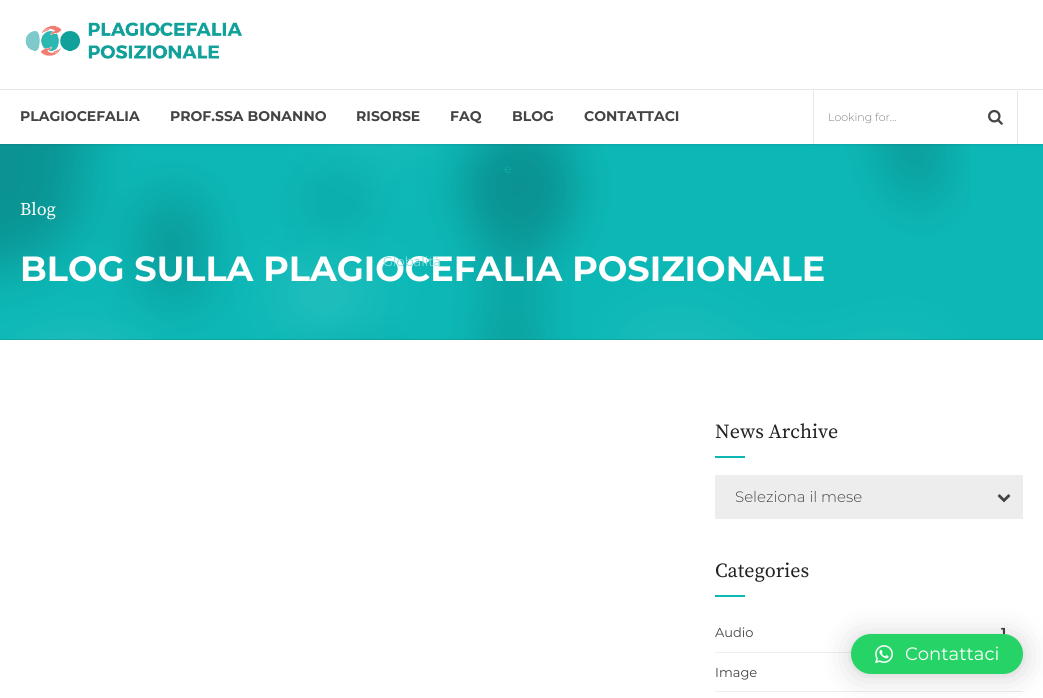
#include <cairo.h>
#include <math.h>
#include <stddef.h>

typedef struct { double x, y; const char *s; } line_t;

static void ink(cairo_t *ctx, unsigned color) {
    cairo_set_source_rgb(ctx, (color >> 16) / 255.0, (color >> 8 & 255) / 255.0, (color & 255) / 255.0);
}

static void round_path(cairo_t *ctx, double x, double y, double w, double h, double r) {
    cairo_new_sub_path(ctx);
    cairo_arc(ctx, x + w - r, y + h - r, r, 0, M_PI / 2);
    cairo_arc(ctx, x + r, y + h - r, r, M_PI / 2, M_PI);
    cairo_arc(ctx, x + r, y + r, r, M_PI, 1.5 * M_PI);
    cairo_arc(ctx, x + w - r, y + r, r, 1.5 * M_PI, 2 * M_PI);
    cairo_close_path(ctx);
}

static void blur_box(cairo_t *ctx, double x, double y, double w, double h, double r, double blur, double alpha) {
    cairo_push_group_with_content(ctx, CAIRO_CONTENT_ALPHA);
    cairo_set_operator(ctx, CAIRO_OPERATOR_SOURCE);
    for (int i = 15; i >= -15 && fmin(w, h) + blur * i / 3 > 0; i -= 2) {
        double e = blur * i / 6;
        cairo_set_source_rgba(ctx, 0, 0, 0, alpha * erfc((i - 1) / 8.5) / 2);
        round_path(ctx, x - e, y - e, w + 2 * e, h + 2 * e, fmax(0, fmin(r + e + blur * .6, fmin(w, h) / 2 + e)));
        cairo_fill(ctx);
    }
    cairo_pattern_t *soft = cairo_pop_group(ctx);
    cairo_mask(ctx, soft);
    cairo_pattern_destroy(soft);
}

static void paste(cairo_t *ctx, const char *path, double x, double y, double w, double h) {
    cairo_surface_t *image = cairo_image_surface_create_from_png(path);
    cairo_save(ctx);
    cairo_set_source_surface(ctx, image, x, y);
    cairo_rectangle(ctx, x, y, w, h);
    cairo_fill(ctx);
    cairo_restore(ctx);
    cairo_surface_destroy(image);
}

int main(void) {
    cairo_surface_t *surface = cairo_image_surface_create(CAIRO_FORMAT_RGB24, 1043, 698);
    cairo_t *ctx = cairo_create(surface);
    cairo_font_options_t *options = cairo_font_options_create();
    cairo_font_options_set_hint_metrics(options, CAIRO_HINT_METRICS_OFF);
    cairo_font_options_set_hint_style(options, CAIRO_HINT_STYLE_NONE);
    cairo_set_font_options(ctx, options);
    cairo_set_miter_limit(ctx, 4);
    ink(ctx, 0xFFFFFF);
    cairo_paint(ctx);
    ink(ctx, 0x0CB8B6);
    cairo_rectangle(ctx, 0, 144, 1043, 196);
    cairo_fill(ctx);
    paste(ctx, "media/3.png", 0, 144, 971, 196);
    cairo_save(ctx);
    cairo_rectangle(ctx, 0, 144, 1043, 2);
    cairo_clip(ctx);
    ink(ctx, 0x000000);
    blur_box(ctx, 0, 1, 1043, 144, 0, 1.5, 0.1);
    cairo_restore(ctx);
    paste(ctx, "media/1.png", 25, 22, 217, 37);
    ink(ctx, 0xE6E6E6);
    cairo_rectangle(ctx, 0, 89, 1043, 1);
    cairo_fill(ctx);
    cairo_select_font_face(ctx, "Montserrat", CAIRO_FONT_SLANT_NORMAL, CAIRO_FONT_WEIGHT_BOLD);
    cairo_set_font_size(ctx, 14);
    ink(ctx, 0x444444);
    {
        static const line_t items[] = {
            {20, 121, "PLAGIOCEFALIA"},
            {170, 121, "PROF.SSA BONANNO"},
            {356, 121, "RISORSE"},
        };
        for (size_t i = 0; i < sizeof items / sizeof *items; i++) {
            cairo_move_to(ctx, items[i].x, items[i].y);
            cairo_show_text(ctx, items[i].s);
        }
    }
    cairo_select_font_face(ctx, "Montserrat", CAIRO_FONT_SLANT_NORMAL, CAIRO_FONT_WEIGHT_NORMAL);
    cairo_set_font_size(ctx, 13);
    ink(ctx, 0x0DACAA);
    cairo_move_to(ctx, 504, 173);
    cairo_show_text(ctx, "e");
    cairo_select_font_face(ctx, "Montserrat", CAIRO_FONT_SLANT_NORMAL, CAIRO_FONT_WEIGHT_BOLD);
    cairo_set_font_size(ctx, 35);
    ink(ctx, 0xFFFFFF);
    cairo_move_to(ctx, 20, 281);
    cairo_show_text(ctx, "BLOG SULLA PLAGIOCEFALIA POSIZIONALE");
    cairo_select_font_face(ctx, "Montserrat", CAIRO_FONT_SLANT_NORMAL, CAIRO_FONT_WEIGHT_NORMAL);
    cairo_set_font_size(ctx, 13);
    ink(ctx, 0x86DCDB);
    cairo_move_to(ctx, 383, 266);
    cairo_show_text(ctx, "Globalità");
    cairo_select_font_face(ctx, "Montserrat", CAIRO_FONT_SLANT_NORMAL, CAIRO_FONT_WEIGHT_BOLD);
    cairo_set_font_size(ctx, 14);
    ink(ctx, 0x444444);
    {
        static const line_t items[] = {
            {450, 121, "FAQ"},
            {512, 121, "BLOG"},
            {584, 121, "CONTATTACI"},
        };
        for (size_t i = 0; i < sizeof items / sizeof *items; i++) {
            cairo_move_to(ctx, items[i].x, items[i].y);
            cairo_show_text(ctx, items[i].s);
        }
    }
    cairo_set_source_rgba(ctx, 0, 0, 0, 0.1);
    cairo_rectangle(ctx, 1017, 91, 1, 54);
    cairo_fill(ctx);
    cairo_rectangle(ctx, 813, 91, 1, 54);
    cairo_fill(ctx);
    cairo_select_font_face(ctx, "Montserrat Light", CAIRO_FONT_SLANT_NORMAL, CAIRO_FONT_WEIGHT_NORMAL);
    cairo_set_font_size(ctx, 11);
    ink(ctx, 0x808080);
    cairo_move_to(ctx, 828, 121);
    cairo_show_text(ctx, "Looking for...");
    paste(ctx, "media/2.png", 988, 109, 15, 16);
    cairo_set_source_rgba(ctx, 0, 0, 0, 0.1);
    cairo_rectangle(ctx, 0, 339, 1043, 1);
    cairo_fill(ctx);
    cairo_select_font_face(ctx, "Source Serif Pro", CAIRO_FONT_SLANT_NORMAL, CAIRO_FONT_WEIGHT_NORMAL);
    cairo_set_font_size(ctx, 18);
    ink(ctx, 0xFFFFFF);
    cairo_move_to(ctx, 20, 215);
    cairo_show_text(ctx, "Blog");
    cairo_set_font_size(ctx, 20);
    ink(ctx, 0x222222);
    cairo_move_to(ctx, 715, 438);
    cairo_show_text(ctx, "News Archive");
    ink(ctx, 0x0CB8B6);
    cairo_rectangle(ctx, 715, 456, 30, 2);
    cairo_fill(ctx);
    ink(ctx, 0xEDEDED);
    cairo_rectangle(ctx, 715, 475, 308, 44);
    cairo_fill(ctx);
    cairo_select_font_face(ctx, "Montserrat Light", CAIRO_FONT_SLANT_NORMAL, CAIRO_FONT_WEIGHT_NORMAL);
    cairo_set_font_size(ctx, 15);
    ink(ctx, 0x444444);
    cairo_move_to(ctx, 735, 502);
    cairo_show_text(ctx, "Seleziona il mese");
    paste(ctx, "media/4.png", 997, 494, 14, 9);
    cairo_select_font_face(ctx, "Source Serif Pro", CAIRO_FONT_SLANT_NORMAL, CAIRO_FONT_WEIGHT_NORMAL);
    cairo_set_font_size(ctx, 20);
    ink(ctx, 0x222222);
    cairo_move_to(ctx, 715, 577);
    cairo_show_text(ctx, "Categories");
    ink(ctx, 0x0CB8B6);
    cairo_rectangle(ctx, 715, 595, 30, 2);
    cairo_fill(ctx);
    ink(ctx, 0xEDEDED);
    cairo_rectangle(ctx, 715, 652, 308, 1);
    cairo_fill(ctx);
    cairo_select_font_face(ctx, "Montserrat", CAIRO_FONT_SLANT_NORMAL, CAIRO_FONT_WEIGHT_NORMAL);
    cairo_set_font_size(ctx, 13);
    ink(ctx, 0x444444);
    cairo_move_to(ctx, 715, 637);
    cairo_show_text(ctx, "Audio");
    cairo_select_font_face(ctx, "Montserrat", CAIRO_FONT_SLANT_NORMAL, CAIRO_FONT_WEIGHT_BOLD);
    cairo_move_to(ctx, 1001, 637);
    cairo_show_text(ctx, "1");
    ink(ctx, 0xEDEDED);
    cairo_rectangle(ctx, 715, 691, 308, 1);
    cairo_fill(ctx);
    cairo_select_font_face(ctx, "Montserrat", CAIRO_FONT_SLANT_NORMAL, CAIRO_FONT_WEIGHT_NORMAL);
    ink(ctx, 0x444444);
    cairo_move_to(ctx, 715, 677);
    cairo_show_text(ctx, "Image");
    ink(ctx, 0x000000);
    blur_box(ctx, 851, 636, 172, 40, 20, 16, 0.16);
    blur_box(ctx, 851, 635, 172, 40, 20, 3, 0.06);
    ink(ctx, 0x25D366);
    round_path(ctx, 851, 634, 172, 40, 20);
    cairo_fill(ctx);
    paste(ctx, "media/5.png", 875, 645, 18, 19);
    cairo_set_font_size(ctx, 18);
    ink(ctx, 0xFFFFFF);
    cairo_move_to(ctx, 905, 660);
    cairo_show_text(ctx, "Contattaci");
    cairo_surface_write_to_png(surface, "image.png");
    cairo_font_options_destroy(options);
    cairo_destroy(ctx);
    cairo_surface_destroy(surface);
    return 0;
}
